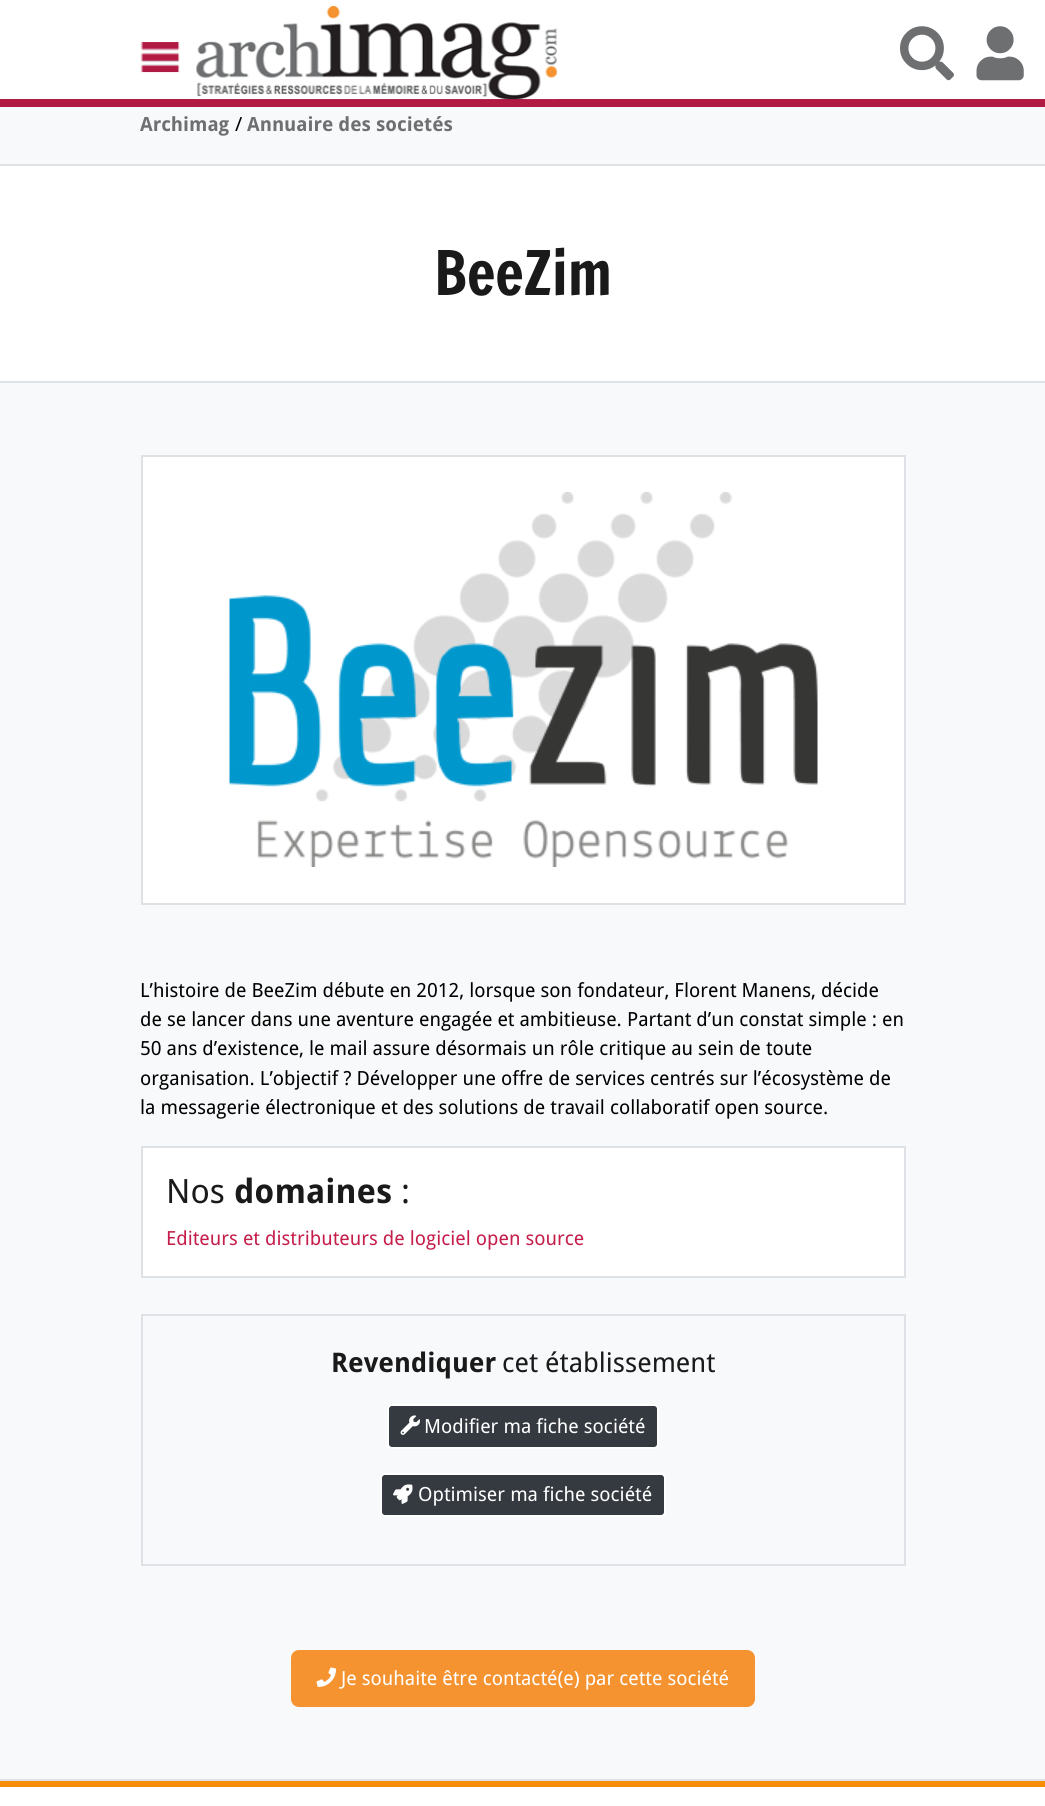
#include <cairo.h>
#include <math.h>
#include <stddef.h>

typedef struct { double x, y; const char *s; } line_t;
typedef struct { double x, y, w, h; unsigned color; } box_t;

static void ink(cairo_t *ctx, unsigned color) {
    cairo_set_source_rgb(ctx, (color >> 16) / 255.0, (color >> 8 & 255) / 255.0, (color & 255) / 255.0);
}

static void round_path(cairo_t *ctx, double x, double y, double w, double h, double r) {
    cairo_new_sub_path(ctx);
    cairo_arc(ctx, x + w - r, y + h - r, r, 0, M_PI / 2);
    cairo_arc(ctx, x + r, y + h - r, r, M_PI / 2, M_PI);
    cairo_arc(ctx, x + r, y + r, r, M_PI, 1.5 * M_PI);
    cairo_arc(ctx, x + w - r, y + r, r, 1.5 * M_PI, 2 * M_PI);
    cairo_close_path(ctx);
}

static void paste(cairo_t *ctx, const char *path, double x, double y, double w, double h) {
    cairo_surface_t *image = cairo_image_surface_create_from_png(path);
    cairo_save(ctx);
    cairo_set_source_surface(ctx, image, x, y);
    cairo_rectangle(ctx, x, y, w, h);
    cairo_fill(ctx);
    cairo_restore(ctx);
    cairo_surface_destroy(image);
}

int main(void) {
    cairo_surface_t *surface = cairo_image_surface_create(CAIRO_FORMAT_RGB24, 1045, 1806);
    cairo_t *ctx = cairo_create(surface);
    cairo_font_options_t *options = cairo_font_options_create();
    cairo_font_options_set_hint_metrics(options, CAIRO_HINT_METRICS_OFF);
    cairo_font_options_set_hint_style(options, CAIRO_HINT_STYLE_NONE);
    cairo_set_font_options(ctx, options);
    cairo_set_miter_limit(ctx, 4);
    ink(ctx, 0xFFFFFF);
    cairo_paint(ctx);
    ink(ctx, 0xB01A43);
    cairo_rectangle(ctx, 0, 99, 1045, 8);
    cairo_fill(ctx);
    paste(ctx, "media/1.png", 140, 42, 40, 31);
    paste(ctx, "media/2.png", 196, 6, 361, 94);
    paste(ctx, "media/3.png", 900, 26, 54, 55);
    paste(ctx, "media/4.png", 976, 26, 48, 55);
    ink(ctx, 0xF8F9FA);
    cairo_rectangle(ctx, 0, 107, 1045, 57);
    cairo_fill(ctx);
    ink(ctx, 0xDEE2E6);
    cairo_rectangle(ctx, 0, 164, 1045, 2);
    cairo_fill(ctx);
    cairo_select_font_face(ctx, "Droid Sans", CAIRO_FONT_SLANT_NORMAL, CAIRO_FONT_WEIGHT_BOLD);
    cairo_set_font_size(ctx, 19.5);
    ink(ctx, 0x6D6F71);
    cairo_move_to(ctx, 140, 131);
    cairo_show_text(ctx, "Archimag");
    cairo_select_font_face(ctx, "Droid Sans", CAIRO_FONT_SLANT_NORMAL, CAIRO_FONT_WEIGHT_NORMAL);
    ink(ctx, 0x000000);
    cairo_move_to(ctx, 235, 131);
    cairo_show_text(ctx, "/");
    cairo_select_font_face(ctx, "Droid Sans", CAIRO_FONT_SLANT_NORMAL, CAIRO_FONT_WEIGHT_BOLD);
    ink(ctx, 0x6D6F71);
    cairo_move_to(ctx, 247, 131);
    cairo_show_text(ctx, "Annuaire des societés");
    cairo_select_font_face(ctx, "Francois One", CAIRO_FONT_SLANT_NORMAL, CAIRO_FONT_WEIGHT_NORMAL);
    cairo_set_font_size(ctx, 60);
    ink(ctx, 0x1A1A1A);
    cairo_move_to(ctx, 434, 295);
    cairo_show_text(ctx, "BeeZim");
    {
        static const box_t items[] = {
            {0, 383, 1045, 1396, 0xF8F9FA},
            {0, 381, 1045, 2, 0xDEE2E6},
            {0, 1779, 1045, 2, 0xDEE2E6},
        };
        for (size_t i = 0; i < sizeof items / sizeof *items; i++) {
            ink(ctx, items[i].color);
            cairo_rectangle(ctx, items[i].x, items[i].y, items[i].w, items[i].h);
            cairo_fill(ctx);
        }
    }
    ink(ctx, 0xFFFFFF);
    cairo_rectangle(ctx, 142, 456, 763, 448);
    cairo_fill_preserve(ctx);
    ink(ctx, 0xDEE2E6);
    cairo_stroke(ctx);
    paste(ctx, "media/5.png", 229, 492, 589, 375);
    cairo_select_font_face(ctx, "Droid Sans", CAIRO_FONT_SLANT_NORMAL, CAIRO_FONT_WEIGHT_NORMAL);
    cairo_set_font_size(ctx, 19.5);
    ink(ctx, 0x000000);
    {
        static const line_t items[] = {
            {140, 997, "L’histoire de BeeZim débute en 2012, lorsque son fondateur, Florent Manens, décide"},
            {140, 1026, "de se lancer dans une aventure engagée et ambitieuse. Partant d’un constat simple : en"},
            {140, 1055, "50 ans d’existence, le mail assure désormais un rôle critique au sein de toute"},
            {140, 1085, "organisation. L’objectif ? Développer une offre de services centrés sur l’écosystème de"},
            {140, 1114, "la messagerie électronique et des solutions de travail collaboratif open source."},
        };
        for (size_t i = 0; i < sizeof items / sizeof *items; i++) {
            cairo_move_to(ctx, items[i].x, items[i].y);
            cairo_show_text(ctx, items[i].s);
        }
    }
    ink(ctx, 0xFFFFFF);
    cairo_rectangle(ctx, 142, 1147, 763, 130);
    cairo_fill_preserve(ctx);
    ink(ctx, 0xDEE2E6);
    cairo_stroke(ctx);
    cairo_set_font_size(ctx, 33.5);
    ink(ctx, 0x1A1A1A);
    cairo_move_to(ctx, 166, 1203);
    cairo_show_text(ctx, "Nos");
    cairo_select_font_face(ctx, "Droid Sans", CAIRO_FONT_SLANT_NORMAL, CAIRO_FONT_WEIGHT_BOLD);
    cairo_move_to(ctx, 234, 1203);
    cairo_show_text(ctx, "domaines");
    cairo_select_font_face(ctx, "Droid Sans", CAIRO_FONT_SLANT_NORMAL, CAIRO_FONT_WEIGHT_NORMAL);
    cairo_move_to(ctx, 401, 1203);
    cairo_show_text(ctx, ":");
    cairo_set_font_size(ctx, 19.5);
    ink(ctx, 0xC61E4B);
    cairo_move_to(ctx, 166, 1245);
    cairo_show_text(ctx, "Editeurs et distributeurs de logiciel open source");
    cairo_rectangle(ctx, 142, 1315, 763, 250);
    ink(ctx, 0xDEE2E6);
    cairo_stroke(ctx);
    cairo_select_font_face(ctx, "Droid Sans", CAIRO_FONT_SLANT_NORMAL, CAIRO_FONT_WEIGHT_BOLD);
    cairo_set_font_size(ctx, 27);
    ink(ctx, 0x1A1A1A);
    cairo_move_to(ctx, 331, 1372);
    cairo_show_text(ctx, "Revendiquer");
    cairo_select_font_face(ctx, "Droid Sans", CAIRO_FONT_SLANT_NORMAL, CAIRO_FONT_WEIGHT_NORMAL);
    cairo_move_to(ctx, 502, 1372);
    cairo_show_text(ctx, "cet établissement");
    ink(ctx, 0x343A40);
    round_path(ctx, 388, 1405, 270, 43, 4);
    cairo_fill_preserve(ctx);
    ink(ctx, 0xFFFFFF);
    cairo_stroke(ctx);
    paste(ctx, "media/6.png", 400, 1415, 20, 20);
    cairo_set_font_size(ctx, 19.5);
    cairo_move_to(ctx, 424, 1433);
    cairo_show_text(ctx, "Modifier ma fiche société");
    ink(ctx, 0x343A40);
    round_path(ctx, 381, 1474, 284, 42, 4);
    cairo_fill_preserve(ctx);
    ink(ctx, 0xFFFFFF);
    cairo_stroke(ctx);
    paste(ctx, "media/7.png", 393, 1484, 20, 20);
    cairo_move_to(ctx, 418, 1501);
    cairo_show_text(ctx, "Optimiser ma fiche société");
    ink(ctx, 0xF59331);
    round_path(ctx, 292, 1651, 462, 55, 7);
    cairo_fill_preserve(ctx);
    cairo_stroke(ctx);
    paste(ctx, "media/8.png", 316, 1667, 20, 20);
    ink(ctx, 0xFFFFFF);
    cairo_move_to(ctx, 341, 1685);
    cairo_show_text(ctx, "Je souhaite être contacté(e) par cette société");
    ink(ctx, 0xF78D05);
    cairo_rectangle(ctx, 0, 1781, 1045, 6);
    cairo_fill(ctx);
    cairo_surface_write_to_png(surface, "image.png");
    cairo_font_options_destroy(options);
    cairo_destroy(ctx);
    cairo_surface_destroy(surface);
    return 0;
}
